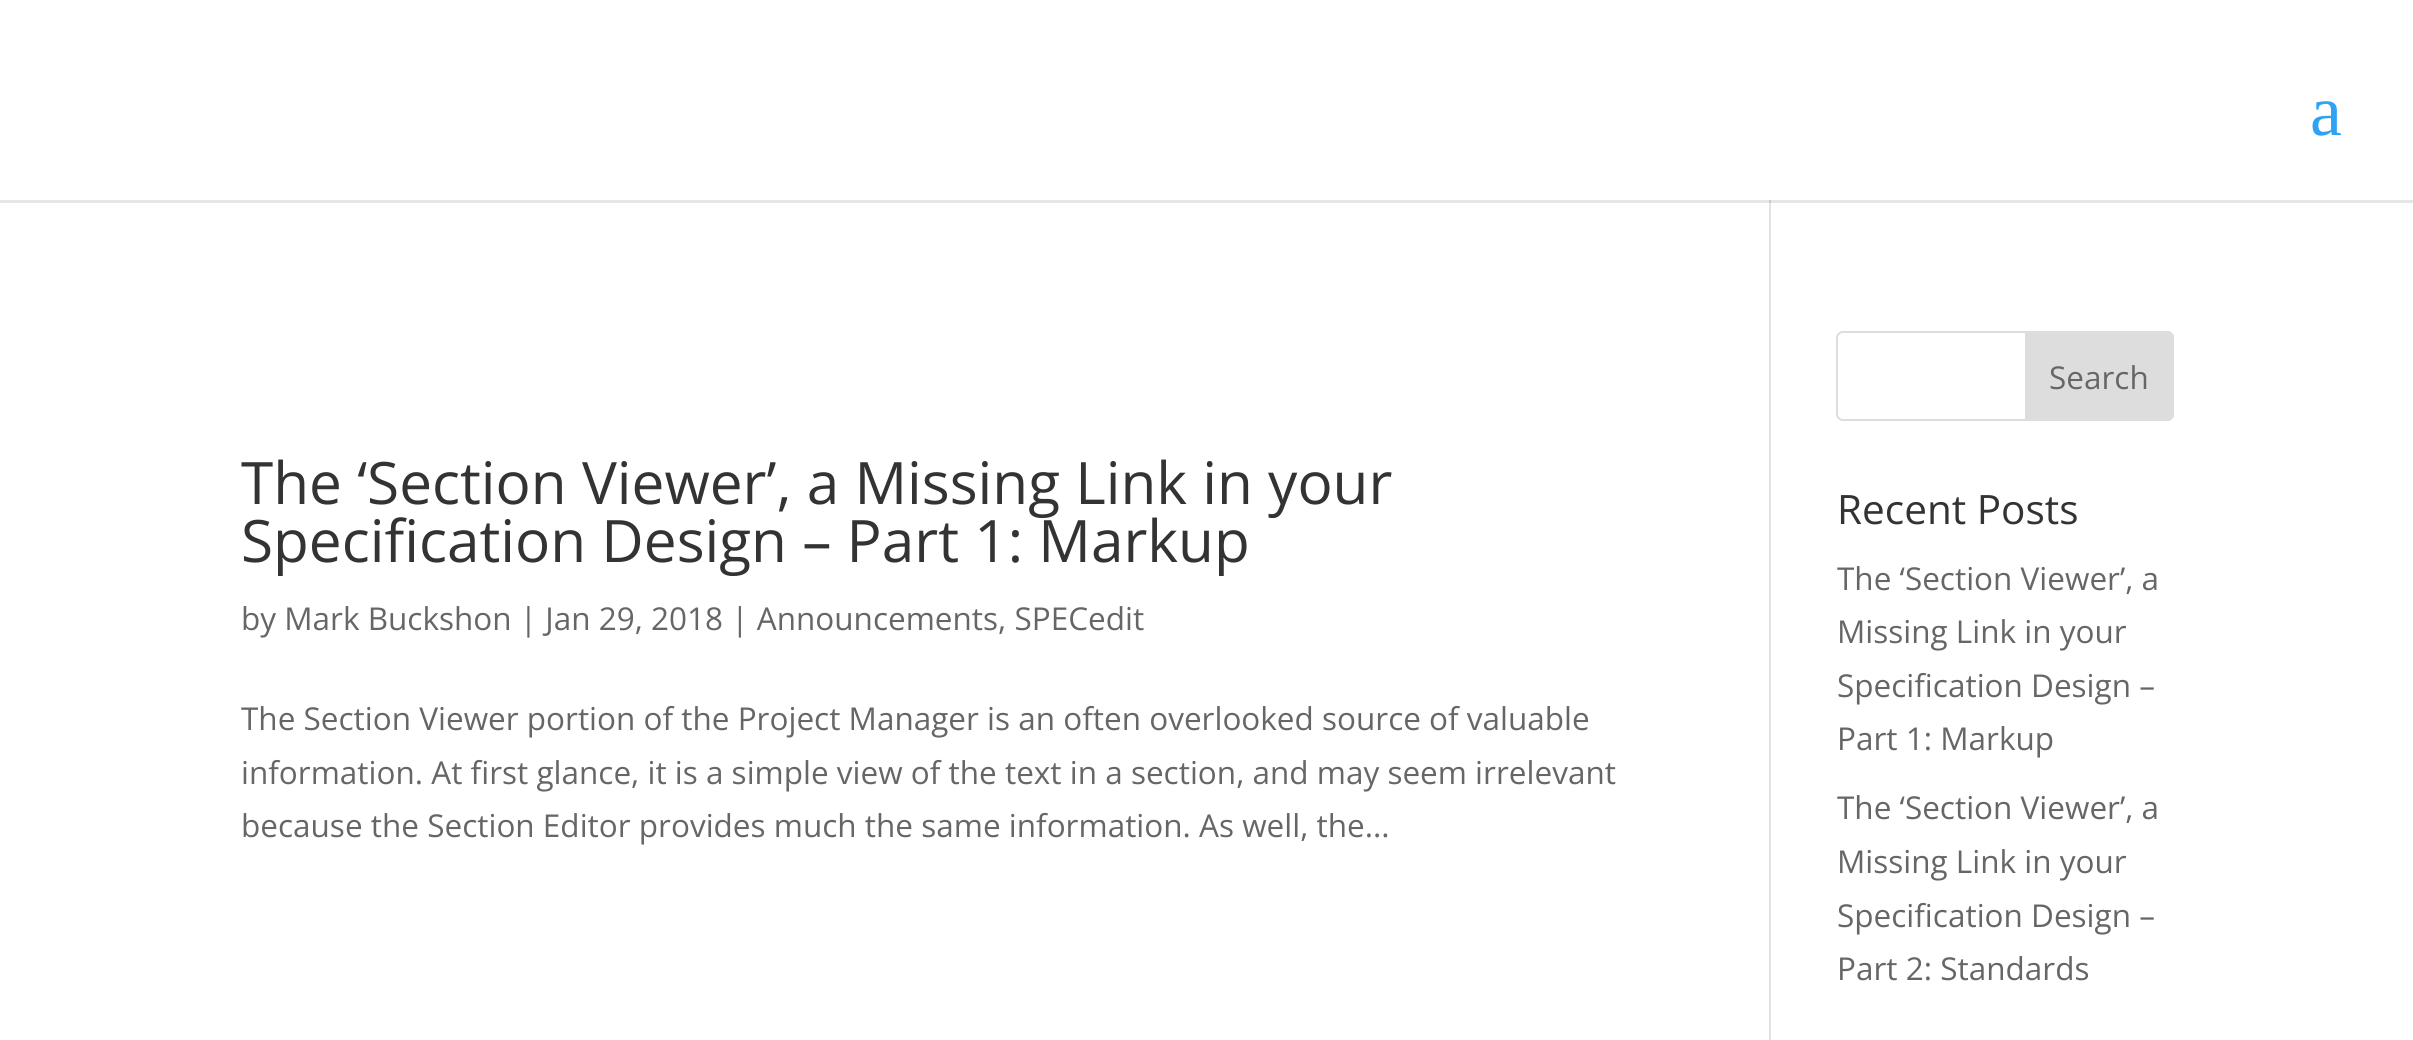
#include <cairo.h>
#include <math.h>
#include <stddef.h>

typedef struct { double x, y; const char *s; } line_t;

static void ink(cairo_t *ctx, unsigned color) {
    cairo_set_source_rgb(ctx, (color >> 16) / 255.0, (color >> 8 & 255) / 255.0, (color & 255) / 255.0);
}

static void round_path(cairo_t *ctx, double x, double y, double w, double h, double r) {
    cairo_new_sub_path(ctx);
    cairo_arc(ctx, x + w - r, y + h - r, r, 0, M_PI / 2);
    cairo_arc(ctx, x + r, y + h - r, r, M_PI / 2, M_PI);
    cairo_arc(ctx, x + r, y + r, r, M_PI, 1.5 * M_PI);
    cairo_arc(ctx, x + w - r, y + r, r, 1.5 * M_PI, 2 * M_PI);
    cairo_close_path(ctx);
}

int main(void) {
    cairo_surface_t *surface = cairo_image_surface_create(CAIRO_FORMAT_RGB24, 2413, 1040);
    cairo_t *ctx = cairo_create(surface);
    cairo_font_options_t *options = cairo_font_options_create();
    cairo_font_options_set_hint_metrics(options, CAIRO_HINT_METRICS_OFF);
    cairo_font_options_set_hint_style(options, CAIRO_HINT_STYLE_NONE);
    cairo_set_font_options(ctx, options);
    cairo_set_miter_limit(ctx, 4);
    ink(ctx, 0xFFFFFF);
    cairo_paint(ctx);
    ink(ctx, 0xE6E6E6);
    cairo_rectangle(ctx, 0, 200, 2413, 3);
    cairo_fill(ctx);
    cairo_select_font_face(ctx, "Liberation Serif", CAIRO_FONT_SLANT_NORMAL, CAIRO_FONT_WEIGHT_NORMAL);
    cairo_set_font_size(ctx, 72);
    ink(ctx, 0x2EA3F2);
    cairo_move_to(ctx, 2310, 135);
    cairo_show_text(ctx, "a");
    ink(ctx, 0xE2E2E2);
    cairo_rectangle(ctx, 1769, 200, 2, 840);
    cairo_fill(ctx);
    ink(ctx, 0xCBCBCB);
    cairo_rectangle(ctx, 1769, 200, 2, 3);
    cairo_fill(ctx);
    cairo_select_font_face(ctx, "Open Sans", CAIRO_FONT_SLANT_NORMAL, CAIRO_FONT_WEIGHT_NORMAL);
    cairo_set_font_size(ctx, 58.5);
    ink(ctx, 0x333333);
    cairo_move_to(ctx, 241, 504);
    cairo_show_text(ctx, "The ‘Section Viewer’, a Missing Link in your");
    cairo_move_to(ctx, 241, 562);
    cairo_show_text(ctx, "Specification Design – Part 1: Markup");
    cairo_set_font_size(ctx, 31.5);
    ink(ctx, 0x666666);
    {
        static const line_t items[] = {
            {241, 630, "by Mark Buckshon | Jan 29, 2018 | Announcements, SPECedit"},
            {241, 730, "The Section Viewer portion of the Project Manager is an often overlooked source of valuable"},
            {241, 784, "information. At first glance, it is a simple view of the text in a section, and may seem irrelevant"},
            {241, 837, "because the Section Editor provides much the same information. As well, the..."},
        };
        for (size_t i = 0; i < sizeof items / sizeof *items; i++) {
            cairo_move_to(ctx, items[i].x, items[i].y);
            cairo_show_text(ctx, items[i].s);
        }
    }
    round_path(ctx, 1837, 332, 336, 88, 6);
    ink(ctx, 0xDDDDDD);
    cairo_stroke(ctx);
    cairo_new_path(ctx);
    cairo_move_to(ctx, 2026, 332);
    cairo_line_to(ctx, 2167, 332);
    cairo_curve_to(ctx, 2170.5, 332, 2173, 334.5, 2173, 338);
    cairo_line_to(ctx, 2173, 414);
    cairo_curve_to(ctx, 2173, 417.5, 2170.5, 420, 2167, 420);
    cairo_line_to(ctx, 2026, 420);
    cairo_close_path(ctx);
    cairo_fill_preserve(ctx);
    cairo_stroke(ctx);
    ink(ctx, 0x666666);
    cairo_move_to(ctx, 2049, 389);
    cairo_show_text(ctx, "Search");
    cairo_set_font_size(ctx, 40.5);
    ink(ctx, 0x333333);
    cairo_move_to(ctx, 1837, 524);
    cairo_show_text(ctx, "Recent Posts");
    cairo_set_font_size(ctx, 31.5);
    ink(ctx, 0x666666);
    {
        static const line_t items[] = {
            {1837, 590, "The ‘Section Viewer’, a"},
            {1837, 643, "Missing Link in your"},
            {1837, 697, "Specification Design –"},
            {1837, 750, "Part 1: Markup"},
            {1837, 819, "The ‘Section Viewer’, a"},
            {1837, 873, "Missing Link in your"},
            {1837, 927, "Specification Design –"},
            {1837, 980, "Part 2: Standards"},
        };
        for (size_t i = 0; i < sizeof items / sizeof *items; i++) {
            cairo_move_to(ctx, items[i].x, items[i].y);
            cairo_show_text(ctx, items[i].s);
        }
    }
    cairo_surface_write_to_png(surface, "image.png");
    cairo_font_options_destroy(options);
    cairo_destroy(ctx);
    cairo_surface_destroy(surface);
    return 0;
}
